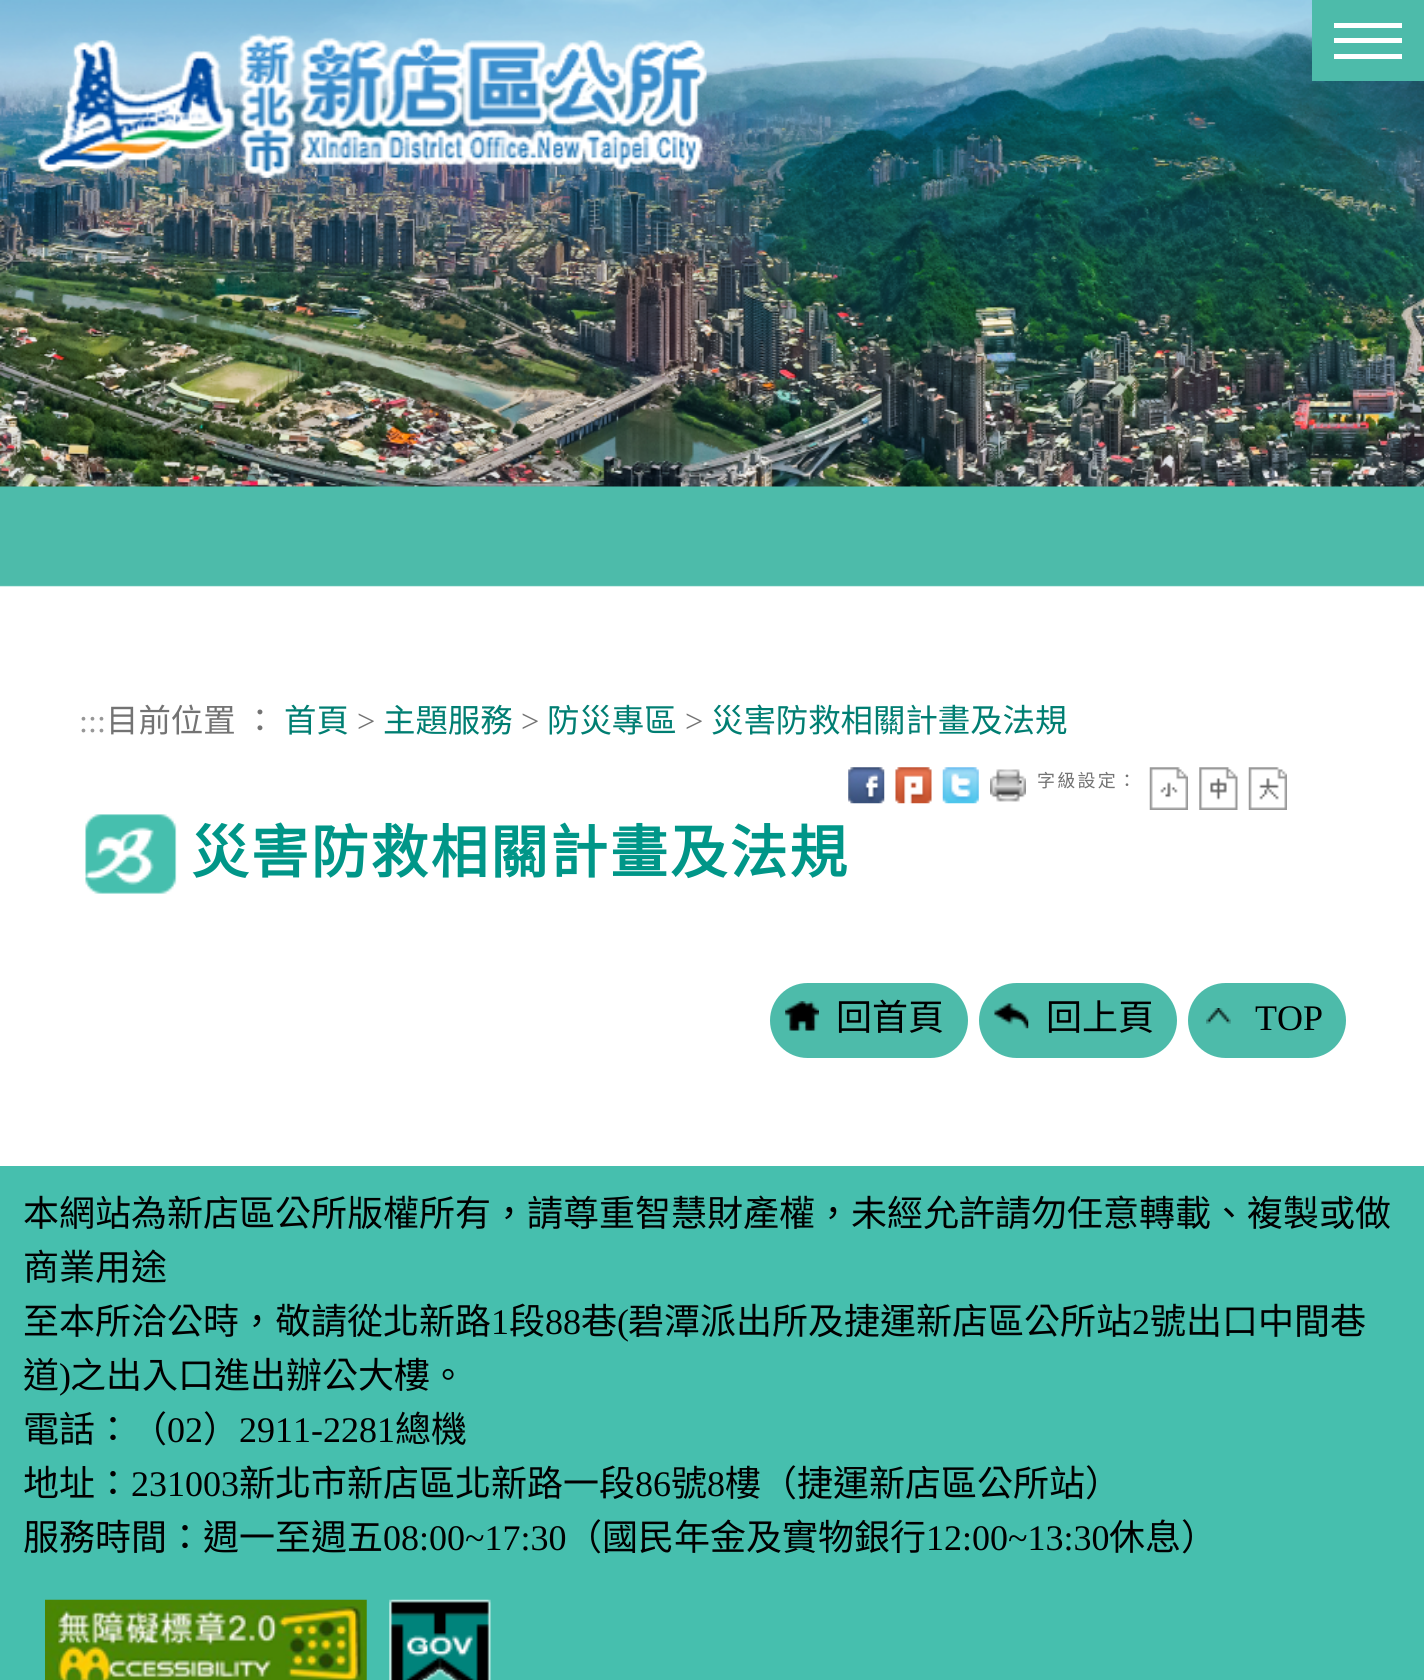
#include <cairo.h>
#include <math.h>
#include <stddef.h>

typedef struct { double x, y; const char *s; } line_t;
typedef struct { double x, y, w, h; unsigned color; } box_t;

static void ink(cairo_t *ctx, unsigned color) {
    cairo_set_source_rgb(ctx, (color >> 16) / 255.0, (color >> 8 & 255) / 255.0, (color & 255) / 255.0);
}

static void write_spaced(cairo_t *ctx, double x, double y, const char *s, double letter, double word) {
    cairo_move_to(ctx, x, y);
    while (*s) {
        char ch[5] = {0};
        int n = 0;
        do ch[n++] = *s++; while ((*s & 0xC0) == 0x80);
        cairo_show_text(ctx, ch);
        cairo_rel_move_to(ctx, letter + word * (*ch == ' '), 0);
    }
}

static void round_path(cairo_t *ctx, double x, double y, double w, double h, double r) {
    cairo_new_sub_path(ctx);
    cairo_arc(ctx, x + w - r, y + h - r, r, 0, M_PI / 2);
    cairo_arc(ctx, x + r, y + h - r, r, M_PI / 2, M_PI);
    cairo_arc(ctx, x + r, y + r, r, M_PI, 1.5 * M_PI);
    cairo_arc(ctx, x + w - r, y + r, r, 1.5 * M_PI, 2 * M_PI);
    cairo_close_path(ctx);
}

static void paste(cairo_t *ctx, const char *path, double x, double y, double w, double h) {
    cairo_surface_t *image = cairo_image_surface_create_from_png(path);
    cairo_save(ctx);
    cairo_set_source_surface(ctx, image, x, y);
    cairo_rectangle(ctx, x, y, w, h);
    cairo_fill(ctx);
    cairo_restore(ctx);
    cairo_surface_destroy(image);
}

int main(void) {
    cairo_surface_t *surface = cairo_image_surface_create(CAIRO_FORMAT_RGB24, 1424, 1680);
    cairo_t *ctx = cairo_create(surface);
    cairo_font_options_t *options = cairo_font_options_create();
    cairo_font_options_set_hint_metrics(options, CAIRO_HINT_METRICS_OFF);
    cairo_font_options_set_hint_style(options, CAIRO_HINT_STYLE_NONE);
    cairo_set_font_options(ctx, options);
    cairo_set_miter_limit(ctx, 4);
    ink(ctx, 0xFFFFFF);
    cairo_paint(ctx);
    paste(ctx, "media/1.png", 0, 0, 1424, 587);
    paste(ctx, "media/2.png", 37, 33, 670, 145);
    {
        static const box_t items[] = {
            {1312, 0, 112, 81, 0x4DBBAA},
            {1334, 23, 68, 5, 0xFFFFFF},
            {1334, 38, 68, 5, 0xFFFFFF},
            {1334, 54, 68, 5, 0xFFFFFF},
        };
        for (size_t i = 0; i < sizeof items / sizeof *items; i++) {
            ink(ctx, items[i].color);
            cairo_rectangle(ctx, items[i].x, items[i].y, items[i].w, items[i].h);
            cairo_fill(ctx);
        }
    }
    cairo_select_font_face(ctx, "Liberation Serif", CAIRO_FONT_SLANT_NORMAL, CAIRO_FONT_WEIGHT_NORMAL);
    cairo_set_font_size(ctx, 32.4);
    ink(ctx, 0x979797);
    cairo_move_to(ctx, 79, 732);
    cairo_show_text(ctx, ":::");
    cairo_select_font_face(ctx, "Noto Sans CJK TC", CAIRO_FONT_SLANT_NORMAL, CAIRO_FONT_WEIGHT_NORMAL);
    ink(ctx, 0x737373);
    write_spaced(ctx, 106, 732, "目前位置 ：", 0, 1);
    ink(ctx, 0x007E72);
    cairo_move_to(ctx, 284, 732);
    cairo_show_text(ctx, "首頁");
    cairo_select_font_face(ctx, "Liberation Serif", CAIRO_FONT_SLANT_NORMAL, CAIRO_FONT_WEIGHT_NORMAL);
    ink(ctx, 0x737373);
    cairo_move_to(ctx, 357, 732);
    cairo_show_text(ctx, ">");
    cairo_select_font_face(ctx, "Noto Sans CJK TC", CAIRO_FONT_SLANT_NORMAL, CAIRO_FONT_WEIGHT_NORMAL);
    ink(ctx, 0x007E72);
    cairo_move_to(ctx, 383, 732);
    cairo_show_text(ctx, "主題服務");
    cairo_select_font_face(ctx, "Liberation Serif", CAIRO_FONT_SLANT_NORMAL, CAIRO_FONT_WEIGHT_NORMAL);
    ink(ctx, 0x737373);
    cairo_move_to(ctx, 521, 732);
    cairo_show_text(ctx, ">");
    cairo_select_font_face(ctx, "Noto Sans CJK TC", CAIRO_FONT_SLANT_NORMAL, CAIRO_FONT_WEIGHT_NORMAL);
    ink(ctx, 0x007E72);
    cairo_move_to(ctx, 547, 732);
    cairo_show_text(ctx, "防災專區");
    cairo_select_font_face(ctx, "Liberation Serif", CAIRO_FONT_SLANT_NORMAL, CAIRO_FONT_WEIGHT_NORMAL);
    ink(ctx, 0x737373);
    cairo_move_to(ctx, 685, 732);
    cairo_show_text(ctx, ">");
    cairo_select_font_face(ctx, "Noto Sans CJK TC", CAIRO_FONT_SLANT_NORMAL, CAIRO_FONT_WEIGHT_NORMAL);
    ink(ctx, 0x007E72);
    cairo_move_to(ctx, 711, 732);
    cairo_show_text(ctx, "災害防救相關計畫及法規");
    paste(ctx, "media/3.png", 85, 814, 92, 80);
    paste(ctx, "media/4.png", 848, 767, 37, 37);
    paste(ctx, "media/5.png", 895, 767, 37, 37);
    paste(ctx, "media/6.png", 942, 767, 37, 37);
    paste(ctx, "media/7.png", 990, 769, 36, 33);
    cairo_set_font_size(ctx, 18);
    ink(ctx, 0x737373);
    write_spaced(ctx, 1037, 787, "字級設定：", 2.25, 0);
    paste(ctx, "media/8.png", 1149, 767, 39, 43);
    paste(ctx, "media/9.png", 1199, 767, 39, 43);
    paste(ctx, "media/10.png", 1248, 767, 39, 43);
    cairo_select_font_face(ctx, "Noto Sans CJK TC", CAIRO_FONT_SLANT_NORMAL, CAIRO_FONT_WEIGHT_BOLD);
    cairo_set_font_size(ctx, 57.6);
    ink(ctx, 0x009688);
    write_spaced(ctx, 191, 873, "災害防救相關計畫及法規", 2.25, 0);
    ink(ctx, 0x4DBBAA);
    round_path(ctx, 770, 983, 198, 75, 37.5);
    cairo_fill(ctx);
    paste(ctx, "media/11.png", 785, 1001, 34, 30);
    cairo_select_font_face(ctx, "Noto Sans CJK TC", CAIRO_FONT_SLANT_NORMAL, CAIRO_FONT_WEIGHT_NORMAL);
    cairo_set_font_size(ctx, 36);
    ink(ctx, 0x000000);
    cairo_move_to(ctx, 836, 1030);
    cairo_show_text(ctx, "回首頁");
    ink(ctx, 0x4DBBAA);
    round_path(ctx, 979, 983, 198, 75, 37.5);
    cairo_fill(ctx);
    paste(ctx, "media/12.png", 994, 1003, 35, 26);
    ink(ctx, 0x000000);
    cairo_move_to(ctx, 1046, 1030);
    cairo_show_text(ctx, "回上頁");
    ink(ctx, 0x4DBBAA);
    round_path(ctx, 1188, 983, 158, 75, 37.5);
    cairo_fill(ctx);
    paste(ctx, "media/13.png", 1206, 1008, 25, 16);
    cairo_select_font_face(ctx, "Liberation Serif", CAIRO_FONT_SLANT_NORMAL, CAIRO_FONT_WEIGHT_NORMAL);
    ink(ctx, 0x000000);
    cairo_move_to(ctx, 1255, 1030);
    cairo_show_text(ctx, "TOP");
    ink(ctx, 0x46BFAE);
    cairo_rectangle(ctx, 0, 1166, 1424, 514);
    cairo_fill(ctx);
    cairo_select_font_face(ctx, "Noto Sans CJK TC", CAIRO_FONT_SLANT_NORMAL, CAIRO_FONT_WEIGHT_NORMAL);
    ink(ctx, 0x000000);
    {
        static const line_t items[] = {
            {23, 1226, "本網站為新店區公所版權所有，請尊重智慧財產權，未經允許請勿任意轉載、複製或做"},
            {23, 1280, "商業用途"},
            {23, 1334, "至本所洽公時，敬請從北新路"},
        };
        for (size_t i = 0; i < sizeof items / sizeof *items; i++) {
            cairo_move_to(ctx, items[i].x, items[i].y);
            cairo_show_text(ctx, items[i].s);
        }
    }
    cairo_select_font_face(ctx, "Liberation Serif", CAIRO_FONT_SLANT_NORMAL, CAIRO_FONT_WEIGHT_NORMAL);
    cairo_move_to(ctx, 491, 1334);
    cairo_show_text(ctx, "1");
    cairo_select_font_face(ctx, "Noto Sans CJK TC", CAIRO_FONT_SLANT_NORMAL, CAIRO_FONT_WEIGHT_NORMAL);
    cairo_move_to(ctx, 509, 1334);
    cairo_show_text(ctx, "段");
    cairo_select_font_face(ctx, "Liberation Serif", CAIRO_FONT_SLANT_NORMAL, CAIRO_FONT_WEIGHT_NORMAL);
    cairo_move_to(ctx, 545, 1334);
    cairo_show_text(ctx, "88");
    cairo_select_font_face(ctx, "Noto Sans CJK TC", CAIRO_FONT_SLANT_NORMAL, CAIRO_FONT_WEIGHT_NORMAL);
    cairo_move_to(ctx, 581, 1334);
    cairo_show_text(ctx, "巷");
    cairo_select_font_face(ctx, "Liberation Serif", CAIRO_FONT_SLANT_NORMAL, CAIRO_FONT_WEIGHT_NORMAL);
    cairo_move_to(ctx, 617, 1334);
    cairo_show_text(ctx, "(");
    cairo_select_font_face(ctx, "Noto Sans CJK TC", CAIRO_FONT_SLANT_NORMAL, CAIRO_FONT_WEIGHT_NORMAL);
    cairo_move_to(ctx, 628, 1334);
    cairo_show_text(ctx, "碧潭派出所及捷運新店區公所站");
    cairo_select_font_face(ctx, "Liberation Serif", CAIRO_FONT_SLANT_NORMAL, CAIRO_FONT_WEIGHT_NORMAL);
    cairo_move_to(ctx, 1132, 1334);
    cairo_show_text(ctx, "2");
    cairo_select_font_face(ctx, "Noto Sans CJK TC", CAIRO_FONT_SLANT_NORMAL, CAIRO_FONT_WEIGHT_NORMAL);
    cairo_move_to(ctx, 1150, 1334);
    cairo_show_text(ctx, "號出口中間巷");
    cairo_move_to(ctx, 23, 1388);
    cairo_show_text(ctx, "道");
    cairo_select_font_face(ctx, "Liberation Serif", CAIRO_FONT_SLANT_NORMAL, CAIRO_FONT_WEIGHT_NORMAL);
    cairo_move_to(ctx, 59, 1388);
    cairo_show_text(ctx, ")");
    cairo_select_font_face(ctx, "Noto Sans CJK TC", CAIRO_FONT_SLANT_NORMAL, CAIRO_FONT_WEIGHT_NORMAL);
    cairo_move_to(ctx, 70, 1388);
    cairo_show_text(ctx, "之出入口進出辦公大樓。");
    cairo_move_to(ctx, 23, 1442);
    cairo_show_text(ctx, "電話：（");
    cairo_select_font_face(ctx, "Liberation Serif", CAIRO_FONT_SLANT_NORMAL, CAIRO_FONT_WEIGHT_NORMAL);
    cairo_move_to(ctx, 167, 1442);
    cairo_show_text(ctx, "02");
    cairo_select_font_face(ctx, "Noto Sans CJK TC", CAIRO_FONT_SLANT_NORMAL, CAIRO_FONT_WEIGHT_NORMAL);
    cairo_move_to(ctx, 203, 1442);
    cairo_show_text(ctx, "）");
    cairo_select_font_face(ctx, "Liberation Serif", CAIRO_FONT_SLANT_NORMAL, CAIRO_FONT_WEIGHT_NORMAL);
    cairo_move_to(ctx, 239, 1442);
    cairo_show_text(ctx, "2911-2281");
    cairo_select_font_face(ctx, "Noto Sans CJK TC", CAIRO_FONT_SLANT_NORMAL, CAIRO_FONT_WEIGHT_NORMAL);
    cairo_move_to(ctx, 395, 1442);
    cairo_show_text(ctx, "總機");
    cairo_move_to(ctx, 23, 1496);
    cairo_show_text(ctx, "地址：");
    cairo_select_font_face(ctx, "Liberation Serif", CAIRO_FONT_SLANT_NORMAL, CAIRO_FONT_WEIGHT_NORMAL);
    cairo_move_to(ctx, 131, 1496);
    cairo_show_text(ctx, "231003");
    cairo_select_font_face(ctx, "Noto Sans CJK TC", CAIRO_FONT_SLANT_NORMAL, CAIRO_FONT_WEIGHT_NORMAL);
    cairo_move_to(ctx, 239, 1496);
    cairo_show_text(ctx, "新北市新店區北新路一段");
    cairo_select_font_face(ctx, "Liberation Serif", CAIRO_FONT_SLANT_NORMAL, CAIRO_FONT_WEIGHT_NORMAL);
    cairo_move_to(ctx, 635, 1496);
    cairo_show_text(ctx, "86");
    cairo_select_font_face(ctx, "Noto Sans CJK TC", CAIRO_FONT_SLANT_NORMAL, CAIRO_FONT_WEIGHT_NORMAL);
    cairo_move_to(ctx, 671, 1496);
    cairo_show_text(ctx, "號");
    cairo_select_font_face(ctx, "Liberation Serif", CAIRO_FONT_SLANT_NORMAL, CAIRO_FONT_WEIGHT_NORMAL);
    cairo_move_to(ctx, 707, 1496);
    cairo_show_text(ctx, "8");
    cairo_select_font_face(ctx, "Noto Sans CJK TC", CAIRO_FONT_SLANT_NORMAL, CAIRO_FONT_WEIGHT_NORMAL);
    cairo_move_to(ctx, 725, 1496);
    cairo_show_text(ctx, "樓（捷運新店區公所站）");
    cairo_move_to(ctx, 23, 1550);
    cairo_show_text(ctx, "服務時間：週一至週五");
    cairo_select_font_face(ctx, "Liberation Serif", CAIRO_FONT_SLANT_NORMAL, CAIRO_FONT_WEIGHT_NORMAL);
    cairo_move_to(ctx, 383, 1550);
    cairo_show_text(ctx, "08:00~17:30");
    cairo_select_font_face(ctx, "Noto Sans CJK TC", CAIRO_FONT_SLANT_NORMAL, CAIRO_FONT_WEIGHT_NORMAL);
    cairo_move_to(ctx, 566, 1550);
    cairo_show_text(ctx, "（國民年金及實物銀行");
    cairo_select_font_face(ctx, "Liberation Serif", CAIRO_FONT_SLANT_NORMAL, CAIRO_FONT_WEIGHT_NORMAL);
    cairo_move_to(ctx, 926, 1550);
    cairo_show_text(ctx, "12:00~13:30");
    cairo_select_font_face(ctx, "Noto Sans CJK TC", CAIRO_FONT_SLANT_NORMAL, CAIRO_FONT_WEIGHT_NORMAL);
    cairo_move_to(ctx, 1109, 1550);
    cairo_show_text(ctx, "休息）");
    paste(ctx, "media/14.png", 45, 1599, 322, 81);
    paste(ctx, "media/15.png", 389, 1599, 102, 81);
    cairo_surface_write_to_png(surface, "image.png");
    cairo_font_options_destroy(options);
    cairo_destroy(ctx);
    cairo_surface_destroy(surface);
    return 0;
}
